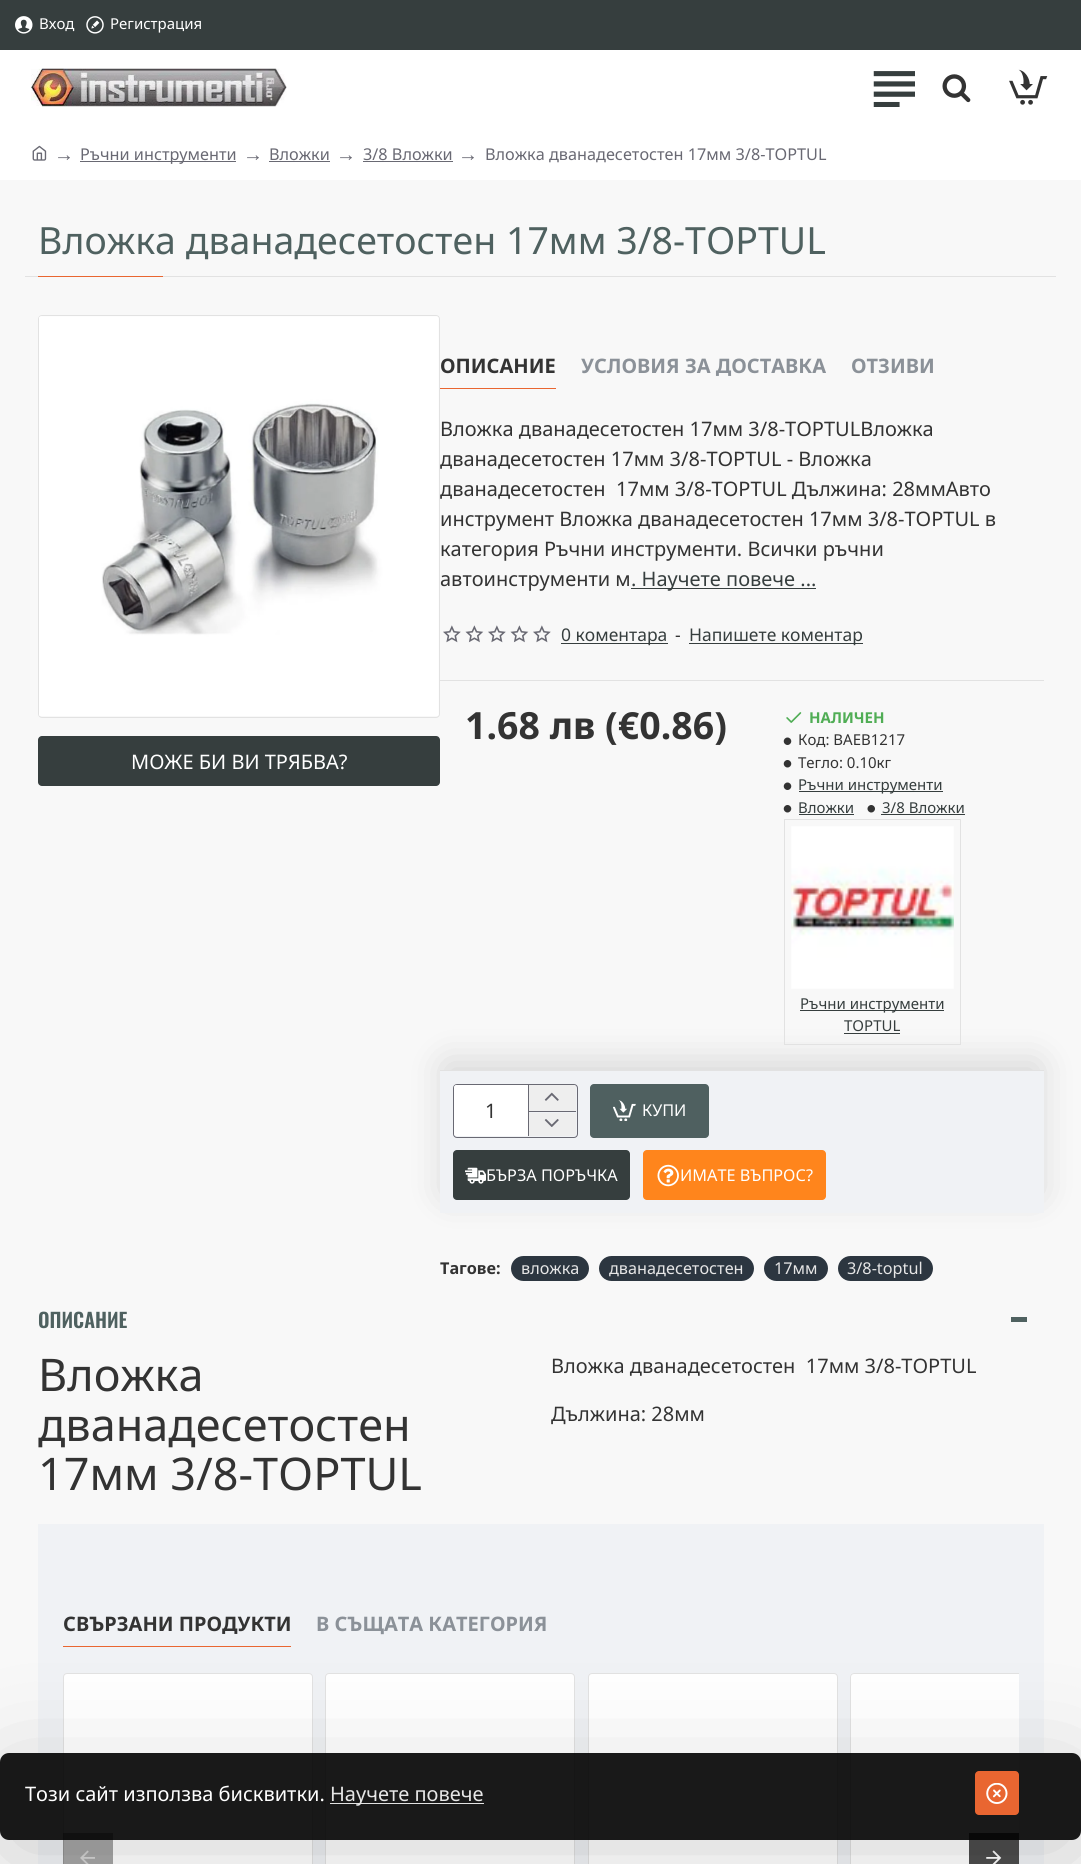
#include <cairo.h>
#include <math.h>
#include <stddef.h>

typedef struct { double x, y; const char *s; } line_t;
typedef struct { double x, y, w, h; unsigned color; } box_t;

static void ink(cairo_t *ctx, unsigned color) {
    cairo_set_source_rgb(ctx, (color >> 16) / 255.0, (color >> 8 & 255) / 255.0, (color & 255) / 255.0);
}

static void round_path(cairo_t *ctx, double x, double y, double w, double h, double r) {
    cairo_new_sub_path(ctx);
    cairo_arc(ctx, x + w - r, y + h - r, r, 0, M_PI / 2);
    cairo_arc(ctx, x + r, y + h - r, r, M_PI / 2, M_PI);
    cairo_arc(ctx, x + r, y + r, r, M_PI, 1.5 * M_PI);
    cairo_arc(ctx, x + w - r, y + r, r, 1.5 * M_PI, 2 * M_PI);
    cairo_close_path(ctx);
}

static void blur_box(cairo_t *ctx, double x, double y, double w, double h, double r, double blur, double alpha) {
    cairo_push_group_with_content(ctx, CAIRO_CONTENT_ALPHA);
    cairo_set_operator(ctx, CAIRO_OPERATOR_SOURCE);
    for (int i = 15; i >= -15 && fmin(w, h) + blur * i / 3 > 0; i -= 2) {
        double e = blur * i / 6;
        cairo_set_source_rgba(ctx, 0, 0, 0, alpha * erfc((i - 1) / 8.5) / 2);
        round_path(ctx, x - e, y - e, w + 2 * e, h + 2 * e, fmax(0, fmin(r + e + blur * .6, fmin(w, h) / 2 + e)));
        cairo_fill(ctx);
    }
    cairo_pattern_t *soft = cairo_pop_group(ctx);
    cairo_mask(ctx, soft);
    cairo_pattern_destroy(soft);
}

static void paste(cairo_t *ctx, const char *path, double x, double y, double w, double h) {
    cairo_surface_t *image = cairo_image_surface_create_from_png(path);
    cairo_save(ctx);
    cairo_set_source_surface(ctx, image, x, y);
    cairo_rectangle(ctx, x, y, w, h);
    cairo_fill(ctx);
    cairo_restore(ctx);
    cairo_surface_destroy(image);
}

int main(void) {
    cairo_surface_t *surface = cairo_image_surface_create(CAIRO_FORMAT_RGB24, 1081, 1864);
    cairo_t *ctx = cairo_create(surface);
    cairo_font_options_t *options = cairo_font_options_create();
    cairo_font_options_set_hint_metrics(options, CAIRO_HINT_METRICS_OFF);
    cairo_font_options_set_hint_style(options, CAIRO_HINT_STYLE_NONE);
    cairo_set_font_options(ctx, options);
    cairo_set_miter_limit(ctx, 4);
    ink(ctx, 0xF8F8F8);
    cairo_paint(ctx);
    ink(ctx, 0x363E3E);
    cairo_rectangle(ctx, 0, 0, 1081, 50);
    cairo_fill(ctx);
    paste(ctx, "media/1.png", 15, 16, 18, 18);
    cairo_select_font_face(ctx, "Noto Sans", CAIRO_FONT_SLANT_NORMAL, CAIRO_FONT_WEIGHT_NORMAL);
    cairo_set_font_size(ctx, 15);
    ink(ctx, 0xFFFFFF);
    cairo_move_to(ctx, 39, 29);
    cairo_show_text(ctx, "Вход");
    paste(ctx, "media/2.png", 86, 16, 18, 18);
    cairo_move_to(ctx, 110, 29);
    cairo_show_text(ctx, "Регистрация");
    cairo_rectangle(ctx, 0, 50, 1081, 130);
    cairo_fill(ctx);
    paste(ctx, "media/3.png", 31, 68, 256, 39);
    paste(ctx, "media/4.png", 873, 71, 42, 36);
    paste(ctx, "media/5.png", 942, 74, 29, 29);
    paste(ctx, "media/6.png", 1009, 69, 39, 36);
    paste(ctx, "media/7.png", 32, 145, 15, 16);
    cairo_select_font_face(ctx, "Liberation Serif", CAIRO_FONT_SLANT_NORMAL, CAIRO_FONT_WEIGHT_NORMAL);
    cairo_set_font_size(ctx, 20);
    ink(ctx, 0x696973);
    cairo_move_to(ctx, 54, 161);
    cairo_show_text(ctx, "→");
    cairo_rectangle(ctx, 80, 161, 156, 1);
    cairo_fill(ctx);
    cairo_select_font_face(ctx, "Noto Sans", CAIRO_FONT_SLANT_NORMAL, CAIRO_FONT_WEIGHT_NORMAL);
    cairo_set_font_size(ctx, 16.25);
    cairo_move_to(ctx, 80, 160);
    cairo_show_text(ctx, "Ръчни инструменти");
    cairo_select_font_face(ctx, "Liberation Serif", CAIRO_FONT_SLANT_NORMAL, CAIRO_FONT_WEIGHT_NORMAL);
    cairo_set_font_size(ctx, 20);
    cairo_move_to(ctx, 243, 161);
    cairo_show_text(ctx, "→");
    cairo_select_font_face(ctx, "Noto Sans", CAIRO_FONT_SLANT_NORMAL, CAIRO_FONT_WEIGHT_NORMAL);
    cairo_set_font_size(ctx, 16.25);
    cairo_move_to(ctx, 269, 160);
    cairo_show_text(ctx, "Вложки");
    cairo_rectangle(ctx, 269, 161, 61, 1);
    cairo_fill(ctx);
    cairo_select_font_face(ctx, "Liberation Serif", CAIRO_FONT_SLANT_NORMAL, CAIRO_FONT_WEIGHT_NORMAL);
    cairo_set_font_size(ctx, 20);
    cairo_move_to(ctx, 336, 161);
    cairo_show_text(ctx, "→");
    cairo_select_font_face(ctx, "Noto Sans", CAIRO_FONT_SLANT_NORMAL, CAIRO_FONT_WEIGHT_NORMAL);
    cairo_set_font_size(ctx, 16.25);
    cairo_move_to(ctx, 363, 160);
    cairo_show_text(ctx, "3/8 Вложки");
    cairo_rectangle(ctx, 363, 161, 90, 1);
    cairo_fill(ctx);
    cairo_select_font_face(ctx, "Liberation Serif", CAIRO_FONT_SLANT_NORMAL, CAIRO_FONT_WEIGHT_NORMAL);
    cairo_set_font_size(ctx, 20);
    cairo_move_to(ctx, 458, 161);
    cairo_show_text(ctx, "→");
    cairo_select_font_face(ctx, "Noto Sans", CAIRO_FONT_SLANT_NORMAL, CAIRO_FONT_WEIGHT_NORMAL);
    cairo_set_font_size(ctx, 16.25);
    cairo_move_to(ctx, 485, 160);
    cairo_show_text(ctx, "Вложка дванадесетостен 17мм 3/8-TOPTUL");
    ink(ctx, 0xE2E2E2);
    cairo_rectangle(ctx, 25, 276, 1031, 1);
    cairo_fill(ctx);
    cairo_set_font_size(ctx, 37.5);
    ink(ctx, 0x4F6160);
    cairo_move_to(ctx, 38, 254);
    cairo_show_text(ctx, "Вложка дванадесетостен 17мм 3/8-TOPTUL");
    ink(ctx, 0xE96631);
    cairo_rectangle(ctx, 38, 276, 125, 1);
    cairo_fill(ctx);
    round_path(ctx, 38.5, 315.5, 401, 402, 3.5);
    ink(ctx, 0xE2E2E2);
    cairo_set_line_width(ctx, 1);
    cairo_stroke(ctx);
    paste(ctx, "media/8.png", 39, 316, 400, 400);
    ink(ctx, 0x363E3E);
    round_path(ctx, 38, 736, 402, 50, 4);
    cairo_fill(ctx);
    cairo_set_font_size(ctx, 20);
    ink(ctx, 0xFFFFFF);
    cairo_move_to(ctx, 131, 769);
    cairo_show_text(ctx, "МОЖЕ БИ ВИ ТРЯБВА?");
    ink(ctx, 0xE96631);
    cairo_rectangle(ctx, 440, 388, 116, 1);
    cairo_fill(ctx);
    cairo_select_font_face(ctx, "Noto Sans", CAIRO_FONT_SLANT_NORMAL, CAIRO_FONT_WEIGHT_BOLD);
    ink(ctx, 0x333333);
    cairo_move_to(ctx, 440, 373);
    cairo_show_text(ctx, "ОПИСАНИЕ");
    ink(ctx, 0x8B9198);
    cairo_move_to(ctx, 581, 373);
    cairo_show_text(ctx, "УСЛОВИЯ ЗА ДОСТАВКА");
    cairo_move_to(ctx, 851, 373);
    cairo_show_text(ctx, "ОТЗИВИ");
    cairo_select_font_face(ctx, "Noto Sans", CAIRO_FONT_SLANT_NORMAL, CAIRO_FONT_WEIGHT_NORMAL);
    ink(ctx, 0x333333);
    {
        static const line_t items[] = {
            {440, 436, "Вложка дванадесетостен 17мм 3/8-TOPTULВложка"},
            {440, 466, "дванадесетостен 17мм 3/8-TOPTUL - Вложка"},
            {440, 496, "дванадесетостен  17мм 3/8-TOPTUL Дължина: 28ммАвто"},
            {440, 526, "инструмент Вложка дванадесетостен 17мм 3/8-TOPTUL в"},
            {440, 556, "категория Ръчни инструменти. Всички ръчни"},
            {440, 586, "автоинструменти м"},
        };
        for (size_t i = 0; i < sizeof items / sizeof *items; i++) {
            cairo_move_to(ctx, items[i].x, items[i].y);
            cairo_show_text(ctx, items[i].s);
        }
    }
    ink(ctx, 0x363E3E);
    cairo_rectangle(ctx, 631, 588, 185, 1);
    cairo_fill(ctx);
    cairo_move_to(ctx, 631, 586);
    cairo_show_text(ctx, ". Научете повече ...");
    ink(ctx, 0xE2E2E2);
    cairo_rectangle(ctx, 440, 680, 604, 1);
    cairo_fill(ctx);
    paste(ctx, "media/9.png", 443, 625, 18, 18);
    paste(ctx, "media/10.png", 465, 625, 19, 18);
    paste(ctx, "media/9.png", 488, 625, 18, 18);
    paste(ctx, "media/10.png", 510, 625, 19, 18);
    paste(ctx, "media/9.png", 533, 625, 18, 18);
    ink(ctx, 0x363E3E);
    cairo_rectangle(ctx, 561, 643, 107, 1);
    cairo_fill(ctx);
    cairo_set_font_size(ctx, 17.5);
    cairo_move_to(ctx, 561, 641);
    cairo_show_text(ctx, "0 коментара");
    ink(ctx, 0x333333);
    cairo_move_to(ctx, 675, 641);
    cairo_show_text(ctx, "-");
    ink(ctx, 0x363E3E);
    cairo_rectangle(ctx, 689, 643, 174, 1);
    cairo_fill(ctx);
    cairo_move_to(ctx, 689, 641);
    cairo_show_text(ctx, "Напишете коментар");
    cairo_select_font_face(ctx, "Noto Sans", CAIRO_FONT_SLANT_NORMAL, CAIRO_FONT_WEIGHT_BOLD);
    cairo_set_font_size(ctx, 37.5);
    ink(ctx, 0x333333);
    cairo_move_to(ctx, 465, 739);
    cairo_show_text(ctx, "1.68 лв (€0.86)");
    paste(ctx, "media/11.png", 786, 712, 16, 11);
    cairo_set_font_size(ctx, 15);
    ink(ctx, 0x50AD55);
    cairo_move_to(ctx, 809, 723);
    cairo_show_text(ctx, "НАЛИЧЕН");
    paste(ctx, "media/12.png", 783, 737, 9, 8);
    cairo_select_font_face(ctx, "Noto Sans", CAIRO_FONT_SLANT_NORMAL, CAIRO_FONT_WEIGHT_NORMAL);
    ink(ctx, 0x333333);
    cairo_move_to(ctx, 798, 745);
    cairo_show_text(ctx, "Код: BAEB1217");
    paste(ctx, "media/13.png", 783, 760, 9, 8);
    cairo_move_to(ctx, 798, 768);
    cairo_show_text(ctx, "Тегло: 0.10кг");
    paste(ctx, "media/12.png", 783, 782, 9, 8);
    ink(ctx, 0x363E3E);
    cairo_rectangle(ctx, 799, 791, 144, 1);
    cairo_fill(ctx);
    cairo_move_to(ctx, 798, 790);
    cairo_show_text(ctx, "Ръчни инструменти");
    paste(ctx, "media/13.png", 783, 805, 9, 8);
    cairo_move_to(ctx, 798, 813);
    cairo_show_text(ctx, "Вложки");
    cairo_rectangle(ctx, 799, 814, 55, 1);
    cairo_fill(ctx);
    paste(ctx, "media/14.png", 867, 805, 8, 8);
    cairo_move_to(ctx, 882, 813);
    cairo_show_text(ctx, "3/8 Вложки");
    cairo_rectangle(ctx, 881, 814, 84, 1);
    cairo_fill(ctx);
    ink(ctx, 0x000000);
    blur_box(ctx, 446, 1064, 592, 130, 0, 19, 0.15);
    cairo_rectangle(ctx, 784.5, 819.5, 176, 225);
    ink(ctx, 0xE2E2E2);
    cairo_stroke(ctx);
    paste(ctx, "media/15.png", 791, 826, 163, 163);
    ink(ctx, 0x363E3E);
    cairo_rectangle(ctx, 800, 1010, 144, 1);
    cairo_fill(ctx);
    cairo_move_to(ctx, 800, 1009);
    cairo_show_text(ctx, "Ръчни инструменти");
    cairo_move_to(ctx, 844, 1031);
    cairo_show_text(ctx, "TOPTUL");
    {
        static const box_t items[] = {
            {844, 1033, 56, 1, 0x363E3E},
            {440, 1071, 604, 142, 0xF0F2F5},
            {440, 1070, 604, 1, 0xE2E2E2},
        };
        for (size_t i = 0; i < sizeof items / sizeof *items; i++) {
            ink(ctx, items[i].color);
            cairo_rectangle(ctx, items[i].x, items[i].y, items[i].w, items[i].h);
            cairo_fill(ctx);
        }
    }
    round_path(ctx, 453.5, 1084.5, 124, 53, 3.5);
    ink(ctx, 0x696973);
    cairo_stroke(ctx);
    ink(ctx, 0xFFFFFF);
    cairo_new_path(ctx);
    cairo_move_to(ctx, 456.5, 1085);
    cairo_line_to(ctx, 528, 1085);
    cairo_line_to(ctx, 528, 1136);
    cairo_line_to(ctx, 456.5, 1136);
    cairo_curve_to(ctx, 455, 1136, 454, 1135, 454, 1133.5);
    cairo_line_to(ctx, 454, 1087.5);
    cairo_curve_to(ctx, 454, 1086, 455, 1085, 456.5, 1085);
    cairo_close_path(ctx);
    cairo_fill(ctx);
    cairo_set_font_size(ctx, 20);
    ink(ctx, 0x333333);
    cairo_move_to(ctx, 485, 1118);
    cairo_show_text(ctx, "1");
    ink(ctx, 0xEEEEEE);
    cairo_new_path(ctx);
    cairo_move_to(ctx, 529, 1085);
    cairo_line_to(ctx, 573.5, 1085);
    cairo_curve_to(ctx, 575, 1085, 576, 1086, 576, 1087.5);
    cairo_line_to(ctx, 576, 1111);
    cairo_line_to(ctx, 529, 1111);
    cairo_close_path(ctx);
    cairo_fill(ctx);
    ink(ctx, 0x696973);
    cairo_rectangle(ctx, 528, 1085, 1, 26);
    cairo_fill(ctx);
    paste(ctx, "media/16.png", 544, 1092, 15, 9);
    ink(ctx, 0xEEEEEE);
    cairo_new_path(ctx);
    cairo_move_to(ctx, 529, 1113);
    cairo_line_to(ctx, 576, 1113);
    cairo_line_to(ctx, 576, 1133.5);
    cairo_curve_to(ctx, 576, 1135, 575, 1136, 573.5, 1136);
    cairo_line_to(ctx, 529, 1136);
    cairo_close_path(ctx);
    cairo_fill(ctx);
    ink(ctx, 0x696973);
    cairo_rectangle(ctx, 528, 1111, 48, 1);
    cairo_fill(ctx);
    cairo_rectangle(ctx, 528, 1111, 1, 25);
    cairo_fill(ctx);
    paste(ctx, "media/17.png", 544, 1119, 15, 8);
    ink(ctx, 0x4F6060);
    round_path(ctx, 590, 1084, 119, 54, 4);
    cairo_fill(ctx);
    paste(ctx, "media/18.png", 613, 1100, 23, 21);
    cairo_set_font_size(ctx, 16.25);
    ink(ctx, 0xFFFFFF);
    cairo_move_to(ctx, 642, 1116);
    cairo_show_text(ctx, "КУПИ");
    ink(ctx, 0x363E3E);
    round_path(ctx, 453, 1150, 177, 50, 4);
    cairo_fill(ctx);
    paste(ctx, "media/19.png", 465, 1167, 21, 17);
    ink(ctx, 0xFFFFFF);
    cairo_move_to(ctx, 486, 1181);
    cairo_show_text(ctx, "БЪРЗА ПОРЪЧКА");
    ink(ctx, 0xFF851C);
    round_path(ctx, 643, 1150, 183, 50, 4);
    cairo_fill(ctx);
    paste(ctx, "media/20.png", 657, 1164, 22, 23);
    ink(ctx, 0xFFFFFF);
    cairo_move_to(ctx, 680, 1181);
    cairo_show_text(ctx, "ИМАТЕ ВЪПРОС?");
    cairo_select_font_face(ctx, "Noto Sans", CAIRO_FONT_SLANT_NORMAL, CAIRO_FONT_WEIGHT_BOLD);
    ink(ctx, 0x333333);
    cairo_move_to(ctx, 440, 1274);
    cairo_show_text(ctx, "Тагове:");
    ink(ctx, 0x2C3640);
    round_path(ctx, 511, 1256, 78, 25, 12.5);
    cairo_fill(ctx);
    cairo_select_font_face(ctx, "Noto Sans", CAIRO_FONT_SLANT_NORMAL, CAIRO_FONT_WEIGHT_NORMAL);
    ink(ctx, 0xE6E6E6);
    cairo_move_to(ctx, 521, 1274);
    cairo_show_text(ctx, "вложка");
    ink(ctx, 0x2C3640);
    round_path(ctx, 599, 1256, 155, 25, 12.5);
    cairo_fill(ctx);
    ink(ctx, 0xE6E6E6);
    cairo_move_to(ctx, 609, 1274);
    cairo_show_text(ctx, "дванадесетостен");
    ink(ctx, 0x2C3640);
    round_path(ctx, 764, 1256, 64, 25, 12.5);
    cairo_fill(ctx);
    ink(ctx, 0xE6E6E6);
    cairo_move_to(ctx, 774, 1274);
    cairo_show_text(ctx, "17мм");
    ink(ctx, 0x2C3640);
    round_path(ctx, 838, 1256, 95, 25, 12.5);
    cairo_fill(ctx);
    ink(ctx, 0xE6E6E6);
    cairo_move_to(ctx, 847, 1274);
    cairo_show_text(ctx, "3/8-toptul");
    cairo_select_font_face(ctx, "Oswald SemiBold", CAIRO_FONT_SLANT_NORMAL, CAIRO_FONT_WEIGHT_NORMAL);
    cairo_set_font_size(ctx, 20);
    ink(ctx, 0x4F6160);
    cairo_move_to(ctx, 38, 1328);
    cairo_show_text(ctx, "ОПИСАНИЕ");
    cairo_rectangle(ctx, 1011, 1317, 16, 5);
    cairo_fill(ctx);
    cairo_select_font_face(ctx, "Noto Sans", CAIRO_FONT_SLANT_NORMAL, CAIRO_FONT_WEIGHT_NORMAL);
    cairo_set_font_size(ctx, 45);
    ink(ctx, 0x333333);
    {
        static const line_t items[] = {
            {38, 1391, "Вложка"},
            {38, 1441, "дванадесетостен"},
            {38, 1490, "17мм 3/8-TOPTUL"},
        };
        for (size_t i = 0; i < sizeof items / sizeof *items; i++) {
            cairo_move_to(ctx, items[i].x, items[i].y);
            cairo_show_text(ctx, items[i].s);
        }
    }
    cairo_set_font_size(ctx, 20);
    cairo_move_to(ctx, 551, 1373);
    cairo_show_text(ctx, "Вложка дванадесетостен  17мм 3/8-TOPTUL");
    cairo_move_to(ctx, 551, 1421);
    cairo_show_text(ctx, "Дължина: 28мм");
    ink(ctx, 0xF0F2F5);
    cairo_rectangle(ctx, 38, 1524, 1006, 340);
    cairo_fill(ctx);
    ink(ctx, 0xE96631);
    cairo_rectangle(ctx, 63, 1646, 228, 1);
    cairo_fill(ctx);
    cairo_select_font_face(ctx, "Noto Sans", CAIRO_FONT_SLANT_NORMAL, CAIRO_FONT_WEIGHT_BOLD);
    ink(ctx, 0x333333);
    cairo_move_to(ctx, 63, 1631);
    cairo_show_text(ctx, "СВЪРЗАНИ ПРОДУКТИ");
    ink(ctx, 0x8B9198);
    cairo_move_to(ctx, 316, 1631);
    cairo_show_text(ctx, "В СЪЩАТА КАТЕГОРИЯ");
    ink(ctx, 0xFFFFFF);
    round_path(ctx, 63.5, 1673.5, 249, 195, 3.5);
    cairo_fill_preserve(ctx);
    ink(ctx, 0xE2E2E2);
    cairo_stroke(ctx);
    ink(ctx, 0xFFFFFF);
    round_path(ctx, 325.5, 1673.5, 249, 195, 3.5);
    cairo_fill_preserve(ctx);
    ink(ctx, 0xE2E2E2);
    cairo_stroke(ctx);
    ink(ctx, 0xFFFFFF);
    round_path(ctx, 588.5, 1673.5, 249, 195, 3.5);
    cairo_fill_preserve(ctx);
    ink(ctx, 0xE2E2E2);
    cairo_stroke(ctx);
    ink(ctx, 0xFFFFFF);
    cairo_new_path(ctx);
    cairo_move_to(ctx, 854, 1673);
    cairo_line_to(ctx, 1019, 1673);
    cairo_line_to(ctx, 1019, 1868);
    cairo_line_to(ctx, 854, 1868);
    cairo_curve_to(ctx, 852, 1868, 850, 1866, 850, 1864);
    cairo_line_to(ctx, 850, 1677);
    cairo_curve_to(ctx, 850, 1675, 852, 1673, 854, 1673);
    cairo_close_path(ctx);
    cairo_fill(ctx);
    cairo_save(ctx);
    cairo_rectangle(ctx, 63, 1673, 956, 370);
    cairo_clip(ctx);
    round_path(ctx, 850.5, 1673.5, 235, 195, 3.5);
    ink(ctx, 0xE2E2E2);
    cairo_stroke(ctx);
    cairo_restore(ctx);
    cairo_set_source_rgba(ctx, 0, 0, 0, 0.35);
    cairo_rectangle(ctx, 63, 1833, 50, 31);
    cairo_fill(ctx);
    paste(ctx, "media/21.png", 80, 1850, 15, 14);
    ink(ctx, 0x4D4D4D);
    cairo_rectangle(ctx, 969, 1833, 50, 31);
    cairo_fill(ctx);
    paste(ctx, "media/22.png", 986, 1850, 16, 14);
    cairo_save(ctx);
    cairo_set_fill_rule(ctx, CAIRO_FILL_RULE_EVEN_ODD);
    cairo_new_path(ctx);
    cairo_move_to(ctx, 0, 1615);
    cairo_line_to(ctx, 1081, 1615);
    cairo_line_to(ctx, 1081, 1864);
    cairo_line_to(ctx, 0, 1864);
    cairo_close_path(ctx);
    cairo_move_to(ctx, 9, 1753);
    cairo_line_to(ctx, 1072, 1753);
    cairo_curve_to(ctx, 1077, 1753, 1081, 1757, 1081, 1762);
    cairo_line_to(ctx, 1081, 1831);
    cairo_curve_to(ctx, 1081, 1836, 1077, 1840, 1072, 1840);
    cairo_line_to(ctx, 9, 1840);
    cairo_curve_to(ctx, 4, 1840, 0, 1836, 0, 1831);
    cairo_line_to(ctx, 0, 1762);
    cairo_curve_to(ctx, 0, 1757, 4, 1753, 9, 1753);
    cairo_close_path(ctx);
    cairo_clip(ctx);
    ink(ctx, 0x000000);
    blur_box(ctx, 13, 1784, 1056, 62, 0, 56, 0.2);
    cairo_restore(ctx);
    cairo_set_source_rgba(ctx, 0, 0, 0, 0.9);
    round_path(ctx, 0, 1753, 1081, 87, 9);
    cairo_fill(ctx);
    cairo_select_font_face(ctx, "Noto Sans", CAIRO_FONT_SLANT_NORMAL, CAIRO_FONT_WEIGHT_NORMAL);
    ink(ctx, 0xFFFFFF);
    cairo_move_to(ctx, 25, 1801);
    cairo_show_text(ctx, "Този сайт използва бисквитки.");
    ink(ctx, 0xE2E2E2);
    cairo_rectangle(ctx, 330, 1803, 154, 1);
    cairo_fill(ctx);
    ink(ctx, 0xE6E6E6);
    cairo_move_to(ctx, 330, 1801);
    cairo_show_text(ctx, "Научете повече");
    ink(ctx, 0xE96631);
    round_path(ctx, 975, 1771, 44, 44, 4);
    cairo_fill(ctx);
    paste(ctx, "media/23.png", 986, 1783, 22, 21);
    cairo_surface_write_to_png(surface, "image.png");
    cairo_font_options_destroy(options);
    cairo_destroy(ctx);
    cairo_surface_destroy(surface);
    return 0;
}
